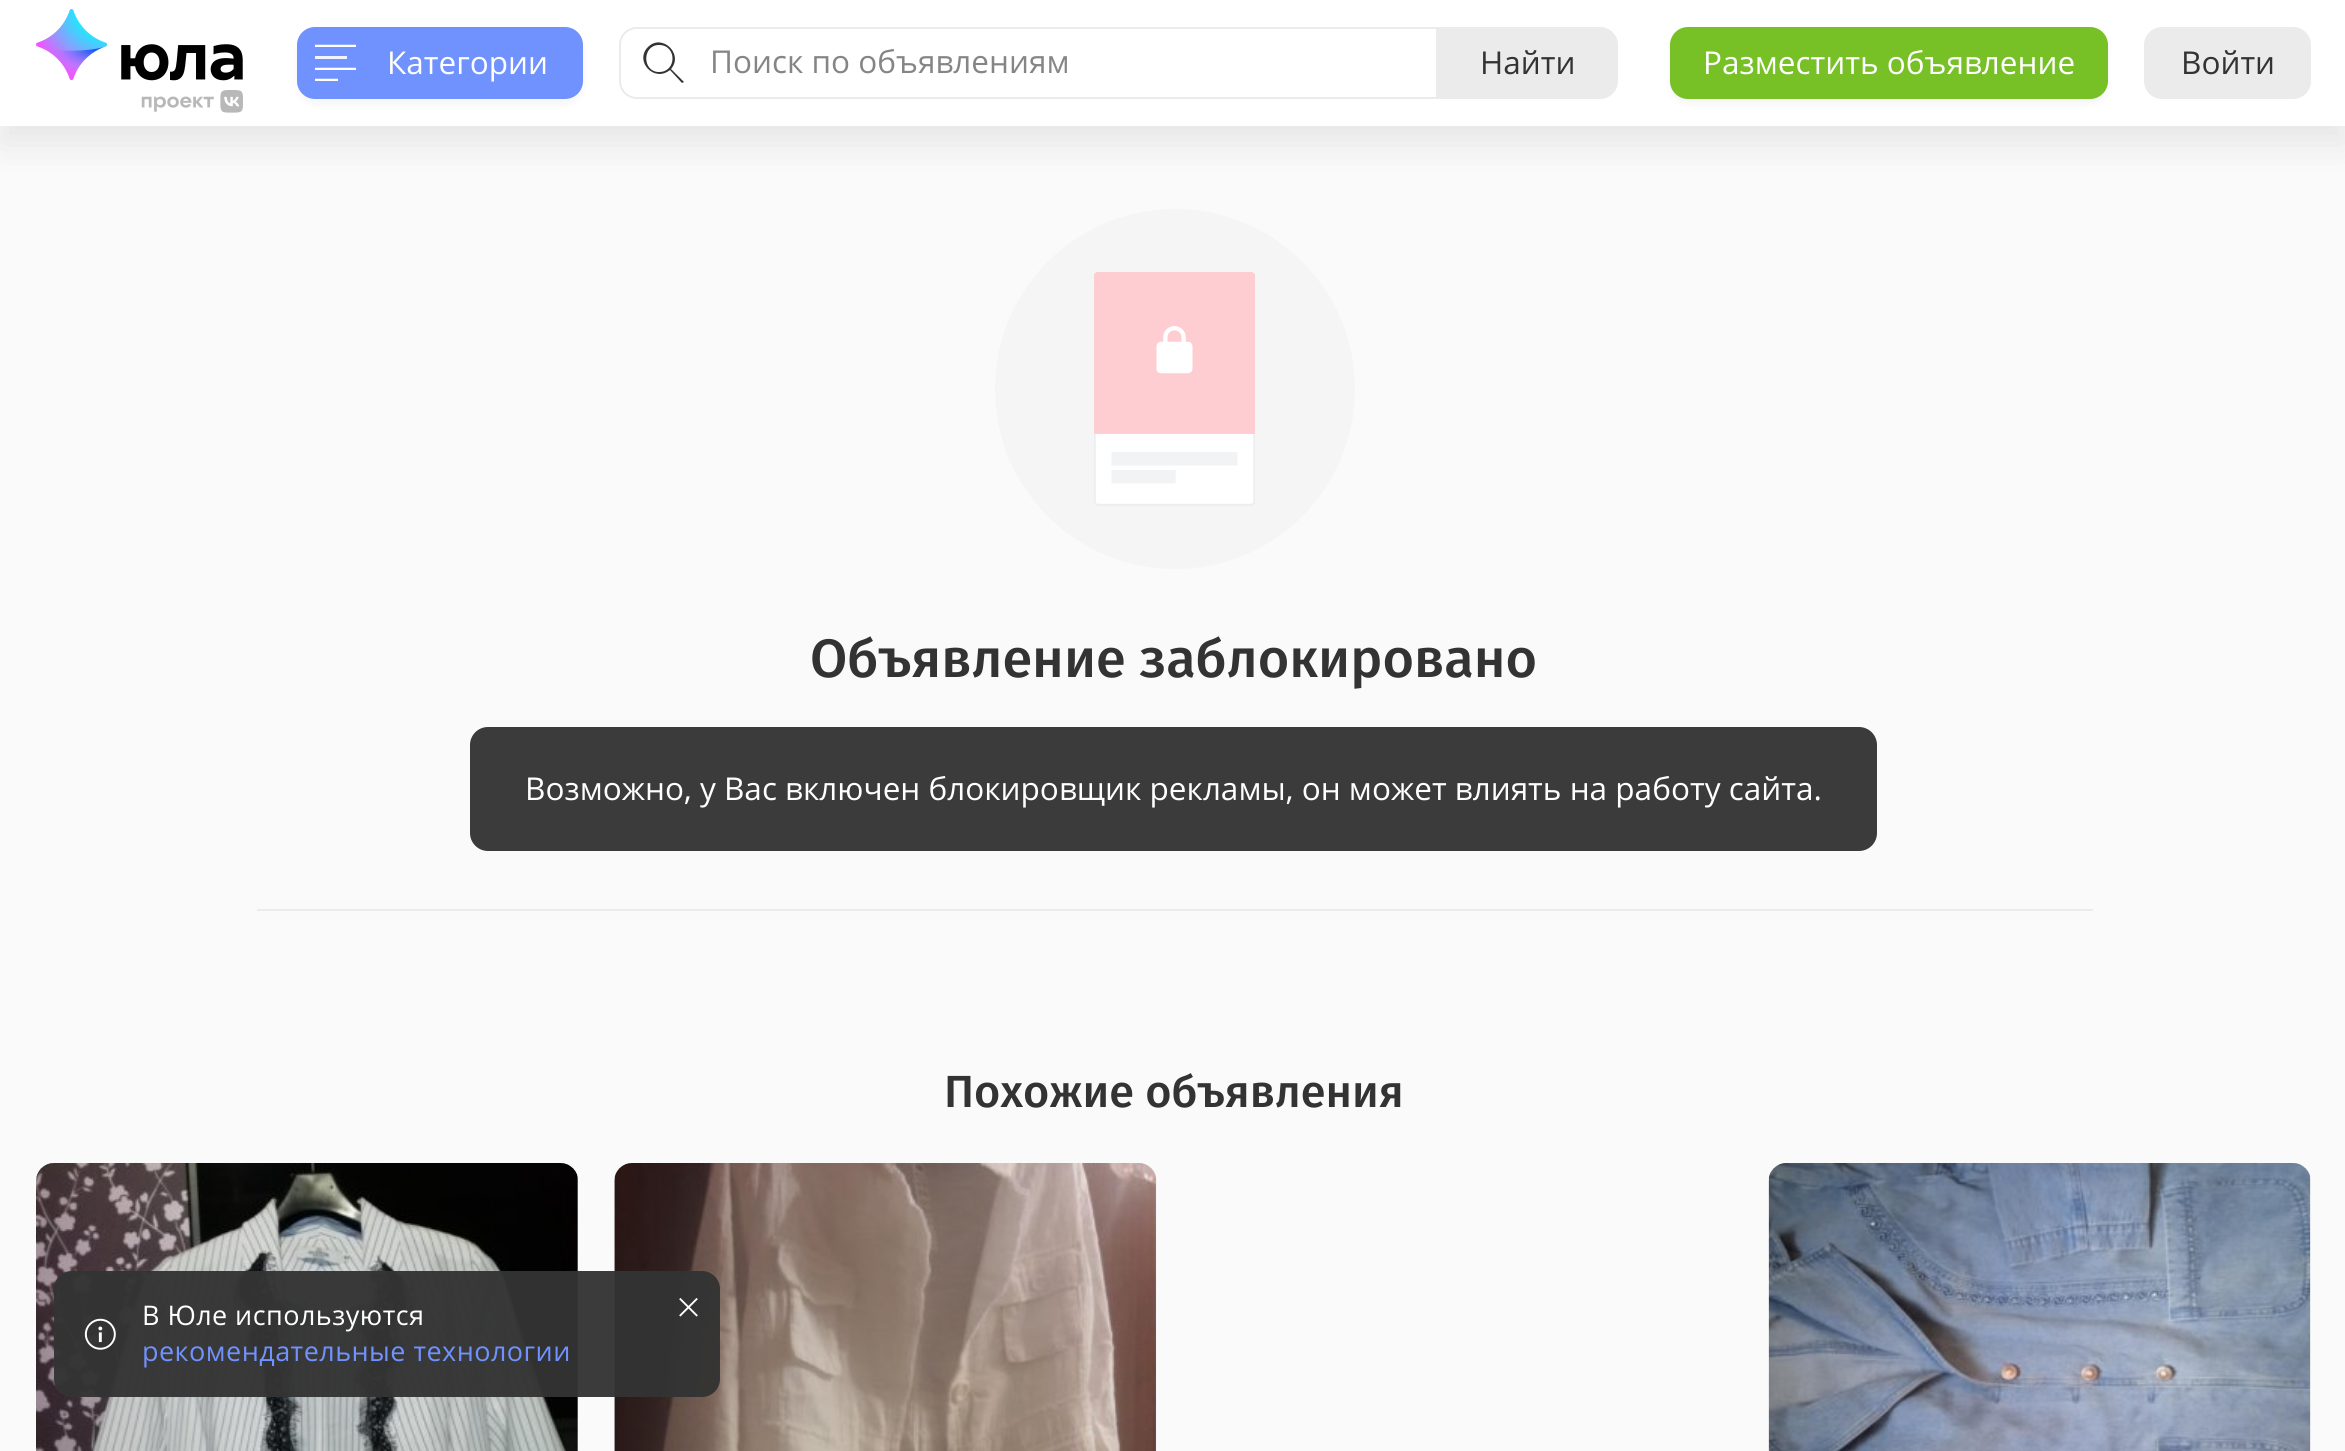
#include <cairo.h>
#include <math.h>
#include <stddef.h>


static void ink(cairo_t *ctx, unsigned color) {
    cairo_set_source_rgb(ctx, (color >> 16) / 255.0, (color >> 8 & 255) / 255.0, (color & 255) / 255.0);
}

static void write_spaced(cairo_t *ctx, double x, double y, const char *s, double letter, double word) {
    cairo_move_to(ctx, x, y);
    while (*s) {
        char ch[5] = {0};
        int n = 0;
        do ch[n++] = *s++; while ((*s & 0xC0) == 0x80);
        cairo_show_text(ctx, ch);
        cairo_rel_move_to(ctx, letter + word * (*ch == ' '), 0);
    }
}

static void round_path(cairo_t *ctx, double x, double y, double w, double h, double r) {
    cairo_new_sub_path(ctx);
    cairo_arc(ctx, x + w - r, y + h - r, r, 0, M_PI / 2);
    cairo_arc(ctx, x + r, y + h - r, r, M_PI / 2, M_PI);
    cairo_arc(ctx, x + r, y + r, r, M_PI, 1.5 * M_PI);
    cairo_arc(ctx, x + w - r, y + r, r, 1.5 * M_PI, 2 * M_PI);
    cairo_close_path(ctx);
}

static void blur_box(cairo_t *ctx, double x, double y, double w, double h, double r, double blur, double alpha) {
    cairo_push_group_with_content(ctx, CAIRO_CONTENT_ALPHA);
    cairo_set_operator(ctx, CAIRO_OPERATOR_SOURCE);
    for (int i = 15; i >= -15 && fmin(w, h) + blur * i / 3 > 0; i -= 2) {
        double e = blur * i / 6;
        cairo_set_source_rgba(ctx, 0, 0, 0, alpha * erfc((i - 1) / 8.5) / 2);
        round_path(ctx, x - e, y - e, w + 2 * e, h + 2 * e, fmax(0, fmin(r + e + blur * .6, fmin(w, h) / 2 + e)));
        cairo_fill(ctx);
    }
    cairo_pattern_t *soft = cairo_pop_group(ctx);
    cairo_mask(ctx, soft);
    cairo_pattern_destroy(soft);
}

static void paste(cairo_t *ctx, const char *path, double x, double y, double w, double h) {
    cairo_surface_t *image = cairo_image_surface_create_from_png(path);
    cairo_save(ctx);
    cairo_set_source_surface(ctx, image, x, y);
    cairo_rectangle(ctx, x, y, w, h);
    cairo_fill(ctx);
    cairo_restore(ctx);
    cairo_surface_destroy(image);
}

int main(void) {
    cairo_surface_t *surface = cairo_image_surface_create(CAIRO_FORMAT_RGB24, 2345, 1451);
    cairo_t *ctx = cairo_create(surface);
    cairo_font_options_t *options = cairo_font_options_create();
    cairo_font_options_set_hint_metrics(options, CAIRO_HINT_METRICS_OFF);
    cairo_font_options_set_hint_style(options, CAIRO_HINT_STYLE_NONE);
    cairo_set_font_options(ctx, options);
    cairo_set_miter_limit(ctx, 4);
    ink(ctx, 0xFAFAFA);
    cairo_paint(ctx);
    ink(ctx, 0x000000);
    blur_box(ctx, 0, 18, 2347, 126, 0, 18, 0.08);
    ink(ctx, 0xFFFFFF);
    cairo_rectangle(ctx, 0, 0, 2345, 126);
    cairo_fill(ctx);
    paste(ctx, "media/1.png", 36, 9, 207, 104);
    ink(ctx, 0x000000);
    blur_box(ctx, 297, 32, 286, 72, 18, 4.5, 0.04);
    ink(ctx, 0x7092FE);
    round_path(ctx, 297, 27, 286, 72, 18);
    cairo_fill(ctx);
    cairo_save(ctx);
    cairo_rectangle(ctx, 315, 36, 41, 11);
    cairo_clip(ctx);
    cairo_new_path(ctx);
    cairo_move_to(ctx, 315, 47);
    cairo_line_to(ctx, 369, 47);
    ink(ctx, 0xFFFFFF);
    cairo_set_line_width(ctx, 4.5);
    cairo_stroke(ctx);
    cairo_restore(ctx);
    ink(ctx, 0xF1F4FF);
    cairo_rectangle(ctx, 315, 56, 32, 3);
    cairo_fill(ctx);
    cairo_save(ctx);
    cairo_rectangle(ctx, 315, 59, 41, 11);
    cairo_clip(ctx);
    cairo_new_path(ctx);
    cairo_move_to(ctx, 315, 70);
    cairo_line_to(ctx, 369, 70);
    ink(ctx, 0xFFFFFF);
    cairo_set_line_width(ctx, 4.5);
    cairo_stroke(ctx);
    cairo_restore(ctx);
    cairo_save(ctx);
    cairo_rectangle(ctx, 315, 70, 23, 11);
    cairo_clip(ctx);
    cairo_new_path(ctx);
    cairo_move_to(ctx, 315, 81);
    cairo_line_to(ctx, 369, 81);
    ink(ctx, 0xFFFFFF);
    cairo_set_line_width(ctx, 4.5);
    cairo_stroke(ctx);
    cairo_restore(ctx);
    cairo_select_font_face(ctx, "Open Sans", CAIRO_FONT_SLANT_NORMAL, CAIRO_FONT_WEIGHT_NORMAL);
    cairo_set_font_size(ctx, 31.5);
    ink(ctx, 0xFFFFFF);
    cairo_move_to(ctx, 387, 74);
    cairo_show_text(ctx, "Категории");
    cairo_new_path(ctx);
    cairo_move_to(ctx, 637, 28);
    cairo_line_to(ctx, 1437, 28);
    cairo_line_to(ctx, 1437, 98);
    cairo_line_to(ctx, 637, 98);
    cairo_curve_to(ctx, 627.5, 98, 620, 90.5, 620, 81);
    cairo_line_to(ctx, 620, 45);
    cairo_curve_to(ctx, 620, 35.5, 627.5, 28, 637, 28);
    cairo_close_path(ctx);
    ink(ctx, 0xEBEBEB);
    cairo_stroke(ctx);
    ink(ctx, 0x333333);
    cairo_new_path(ctx);
    cairo_move_to(ctx, 671, 69);
    cairo_line_to(ctx, 684, 82);
    cairo_line_to(ctx, 682, 83);
    cairo_line_to(ctx, 670, 70);
    cairo_curve_to(ctx, 654, 83, 634, 61, 648, 47);
    cairo_curve_to(ctx, 662, 33, 684, 54, 671, 69);
    cairo_close_path(ctx);
    cairo_move_to(ctx, 659, 72);
    cairo_curve_to(ctx, 677, 72, 677, 45, 659, 45);
    cairo_curve_to(ctx, 642, 45, 642, 72, 659, 72);
    cairo_close_path(ctx);
    cairo_fill(ctx);
    ink(ctx, 0x858585);
    cairo_move_to(ctx, 710, 73);
    cairo_show_text(ctx, "Поиск по объявлениям");
    ink(ctx, 0xEBEBEB);
    cairo_new_path(ctx);
    cairo_move_to(ctx, 1438, 27);
    cairo_line_to(ctx, 1600, 27);
    cairo_curve_to(ctx, 1610, 27, 1618, 35, 1618, 45);
    cairo_line_to(ctx, 1618, 81);
    cairo_curve_to(ctx, 1618, 91, 1610, 99, 1600, 99);
    cairo_line_to(ctx, 1438, 99);
    cairo_close_path(ctx);
    cairo_fill(ctx);
    ink(ctx, 0x333333);
    cairo_move_to(ctx, 1480, 74);
    cairo_show_text(ctx, "Найти");
    ink(ctx, 0x000000);
    blur_box(ctx, 1670, 32, 438, 72, 18, 4.5, 0.04);
    ink(ctx, 0x77C026);
    round_path(ctx, 1670, 27, 438, 72, 18);
    cairo_fill(ctx);
    ink(ctx, 0xFFFFFF);
    cairo_move_to(ctx, 1703, 74);
    cairo_show_text(ctx, "Разместить объявление");
    ink(ctx, 0xEBEBEB);
    round_path(ctx, 2144, 27, 167, 72, 18);
    cairo_fill(ctx);
    ink(ctx, 0x333333);
    cairo_move_to(ctx, 2181, 74);
    cairo_show_text(ctx, "Войти");
    ink(ctx, 0xEBEBEB);
    cairo_rectangle(ctx, 257, 909, 1836, 2);
    cairo_fill(ctx);
    ink(ctx, 0xF5F5F5);
    cairo_arc(ctx, 1175, 389, 180, 0, 2 * M_PI);
    cairo_fill(ctx);
    paste(ctx, "media/2.png", 1094, 272, 161, 234);
    cairo_select_font_face(ctx, "Fira Sans Medium", CAIRO_FONT_SLANT_NORMAL, CAIRO_FONT_WEIGHT_NORMAL);
    cairo_set_font_size(ctx, 54);
    ink(ctx, 0x333333);
    cairo_move_to(ctx, 810, 677);
    cairo_show_text(ctx, "Объявление заблокировано");
    cairo_set_font_size(ctx, 45);
    cairo_move_to(ctx, 944, 1107);
    cairo_show_text(ctx, "Похожие объявления");
    ink(ctx, 0xF5F5F5);
    cairo_new_path(ctx);
    cairo_move_to(ctx, 54, 1163);
    cairo_line_to(ctx, 560, 1163);
    cairo_curve_to(ctx, 570, 1163, 578, 1171, 578, 1181);
    cairo_line_to(ctx, 578, 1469);
    cairo_line_to(ctx, 36, 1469);
    cairo_line_to(ctx, 36, 1181);
    cairo_curve_to(ctx, 36, 1171, 44, 1163, 54, 1163);
    cairo_close_path(ctx);
    cairo_fill(ctx);
    paste(ctx, "media/3.png", 36, 1163, 542, 288);
    cairo_new_path(ctx);
    cairo_move_to(ctx, 632, 1163);
    cairo_line_to(ctx, 1139, 1163);
    cairo_curve_to(ctx, 1149, 1163, 1157, 1171, 1157, 1181);
    cairo_line_to(ctx, 1157, 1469);
    cairo_line_to(ctx, 614, 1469);
    cairo_line_to(ctx, 614, 1181);
    cairo_curve_to(ctx, 614, 1171, 622, 1163, 632, 1163);
    cairo_close_path(ctx);
    cairo_fill(ctx);
    paste(ctx, "media/4.png", 614, 1163, 542, 288);
    cairo_new_path(ctx);
    cairo_move_to(ctx, 1787, 1163);
    cairo_line_to(ctx, 2293, 1163);
    cairo_curve_to(ctx, 2303, 1163, 2311, 1171, 2311, 1181);
    cairo_line_to(ctx, 2311, 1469);
    cairo_line_to(ctx, 1769, 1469);
    cairo_line_to(ctx, 1769, 1181);
    cairo_curve_to(ctx, 1769, 1171, 1777, 1163, 1787, 1163);
    cairo_close_path(ctx);
    cairo_fill(ctx);
    paste(ctx, "media/5.png", 1768, 1163, 543, 288);
    cairo_set_source_rgba(ctx, 0.2, 0.2, 0.2, 0.96);
    round_path(ctx, 470, 727, 1407, 124, 18);
    cairo_fill(ctx);
    cairo_select_font_face(ctx, "Open Sans", CAIRO_FONT_SLANT_NORMAL, CAIRO_FONT_WEIGHT_NORMAL);
    cairo_set_font_size(ctx, 31.5);
    ink(ctx, 0xFFFFFF);
    cairo_move_to(ctx, 525, 800);
    cairo_show_text(ctx, "Возможно, у Вас включен блокировщик рекламы, он может влиять на работу сайта.");
    cairo_set_source_rgba(ctx, 0.2, 0.2, 0.2, 0.96);
    round_path(ctx, 54, 1271, 666, 126, 18);
    cairo_fill(ctx);
    paste(ctx, "media/6.png", 84, 1318, 32, 32);
    cairo_set_font_size(ctx, 27);
    ink(ctx, 0xFFFFFF);
    write_spaced(ctx, 142, 1325, "В Юле используются", 0.45, 0);
    ink(ctx, 0x7092FE);
    write_spaced(ctx, 142, 1361, "рекомендательные технологии", 0.45, 0);
    paste(ctx, "media/7.png", 679, 1298, 19, 19);
    cairo_surface_write_to_png(surface, "image.png");
    cairo_font_options_destroy(options);
    cairo_destroy(ctx);
    cairo_surface_destroy(surface);
    return 0;
}
